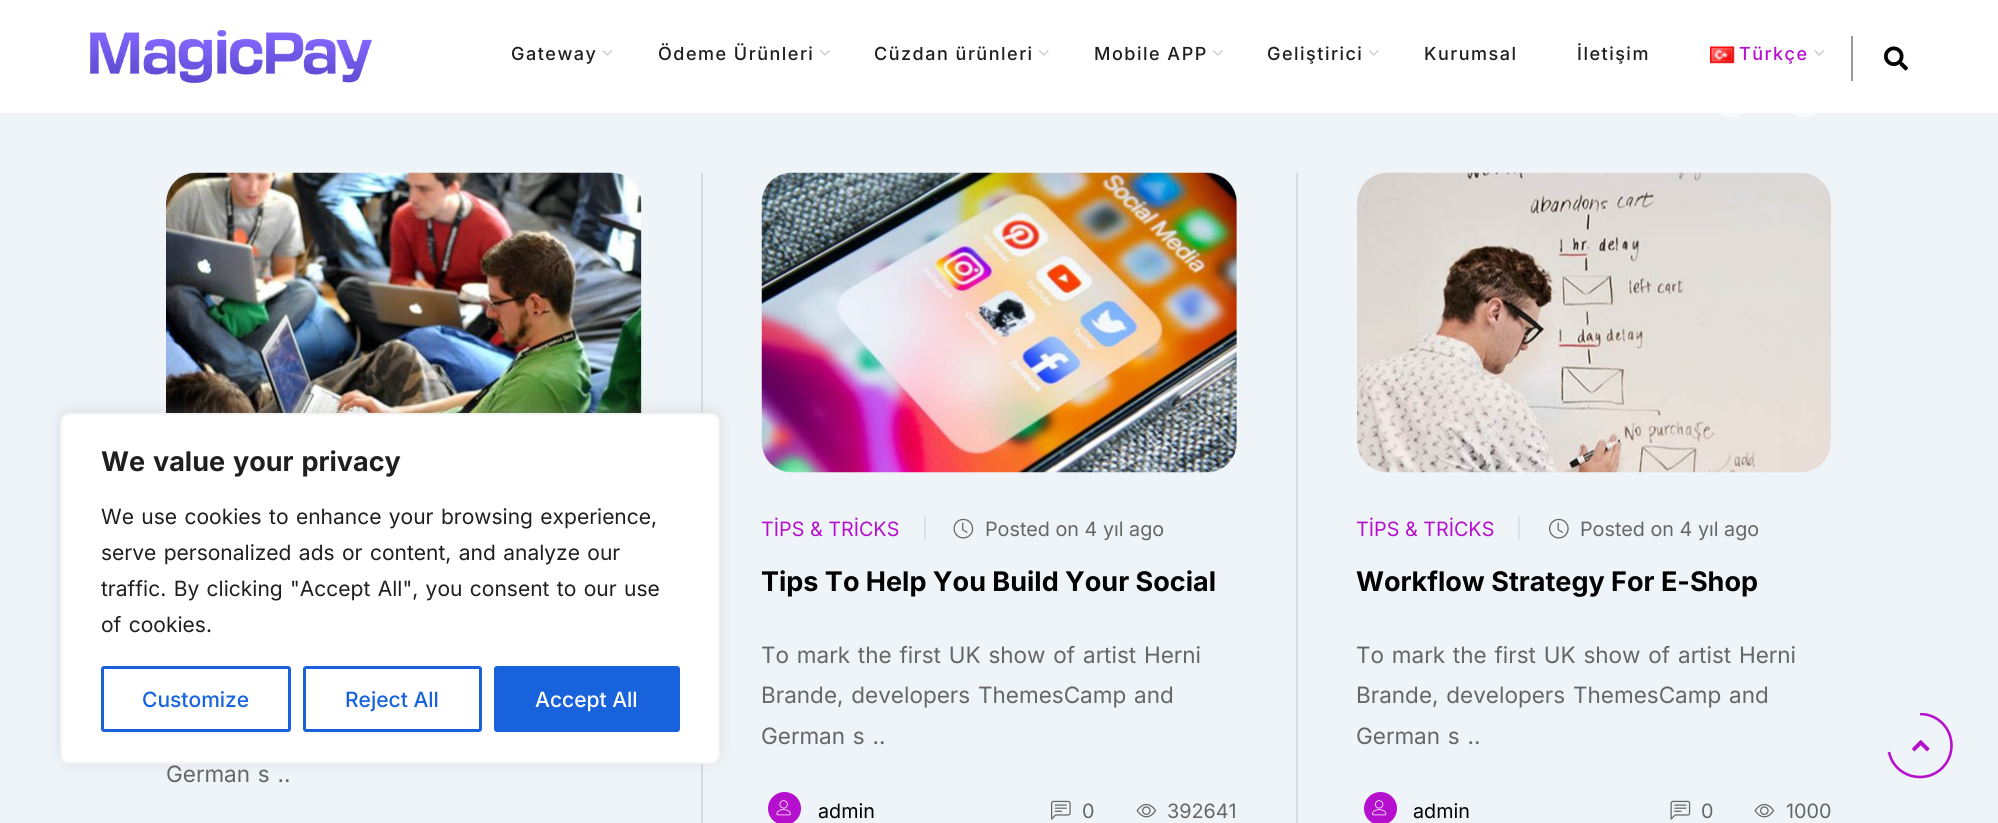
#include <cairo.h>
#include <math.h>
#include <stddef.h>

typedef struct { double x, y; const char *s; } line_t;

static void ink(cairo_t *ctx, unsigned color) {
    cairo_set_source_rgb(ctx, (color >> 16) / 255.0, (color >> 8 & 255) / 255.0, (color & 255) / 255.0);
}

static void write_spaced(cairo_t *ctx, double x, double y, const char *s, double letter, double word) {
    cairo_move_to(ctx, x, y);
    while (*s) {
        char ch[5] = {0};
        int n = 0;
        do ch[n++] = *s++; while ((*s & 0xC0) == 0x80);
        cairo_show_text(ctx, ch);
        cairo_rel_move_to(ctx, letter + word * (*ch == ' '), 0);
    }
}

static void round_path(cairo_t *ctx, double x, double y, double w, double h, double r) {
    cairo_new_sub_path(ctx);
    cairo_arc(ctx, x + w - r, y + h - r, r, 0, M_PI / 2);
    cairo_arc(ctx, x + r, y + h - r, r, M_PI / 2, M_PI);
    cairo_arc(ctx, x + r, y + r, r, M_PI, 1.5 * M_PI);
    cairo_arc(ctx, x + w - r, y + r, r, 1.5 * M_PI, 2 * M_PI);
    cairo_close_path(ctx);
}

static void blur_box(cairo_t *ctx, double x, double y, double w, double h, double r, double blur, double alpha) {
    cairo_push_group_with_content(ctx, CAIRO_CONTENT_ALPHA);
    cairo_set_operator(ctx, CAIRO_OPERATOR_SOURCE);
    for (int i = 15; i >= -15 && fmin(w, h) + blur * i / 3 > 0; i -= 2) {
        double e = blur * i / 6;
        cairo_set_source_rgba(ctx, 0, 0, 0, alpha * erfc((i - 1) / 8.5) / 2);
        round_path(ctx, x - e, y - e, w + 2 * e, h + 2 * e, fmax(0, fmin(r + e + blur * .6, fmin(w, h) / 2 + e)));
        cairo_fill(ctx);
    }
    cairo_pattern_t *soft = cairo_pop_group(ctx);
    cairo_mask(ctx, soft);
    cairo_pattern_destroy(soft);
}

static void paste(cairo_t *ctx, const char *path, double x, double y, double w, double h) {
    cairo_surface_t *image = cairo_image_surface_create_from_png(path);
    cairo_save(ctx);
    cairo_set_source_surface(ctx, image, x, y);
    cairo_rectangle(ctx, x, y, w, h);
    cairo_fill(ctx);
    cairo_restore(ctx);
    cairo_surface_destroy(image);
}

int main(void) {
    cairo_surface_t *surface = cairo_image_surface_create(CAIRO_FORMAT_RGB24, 1998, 823);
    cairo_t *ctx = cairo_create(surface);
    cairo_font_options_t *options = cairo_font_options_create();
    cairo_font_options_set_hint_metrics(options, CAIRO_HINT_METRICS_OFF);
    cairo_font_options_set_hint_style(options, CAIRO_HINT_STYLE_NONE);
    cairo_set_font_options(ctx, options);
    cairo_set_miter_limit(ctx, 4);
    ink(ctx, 0xEEF4F8);
    cairo_paint(ctx);
    ink(ctx, 0xFFFFFF);
    round_path(ctx, 1704, 65, 53, 52, 26);
    cairo_fill(ctx);
    round_path(ctx, 1779, 65, 53, 52, 26);
    cairo_fill(ctx);
    ink(ctx, 0xEEEEEE);
    blur_box(ctx, 0, 0, 1998, 113, 0, 4, 1);
    ink(ctx, 0xFFFFFF);
    cairo_rectangle(ctx, 0, 0, 1998, 113);
    cairo_fill(ctx);
    paste(ctx, "media/1.png", 90, 30, 282, 53);
    cairo_select_font_face(ctx, "Inter Medium", CAIRO_FONT_SLANT_NORMAL, CAIRO_FONT_WEIGHT_NORMAL);
    cairo_set_font_size(ctx, 18);
    ink(ctx, 0x1F1F1F);
    write_spaced(ctx, 511, 60, "Gateway", 1.5, 0);
    paste(ctx, "media/2.png", 602, 50, 11, 6);
    write_spaced(ctx, 658, 60, "Ödeme Ürünleri", 1.5, 0);
    paste(ctx, "media/3.png", 819, 50, 11, 6);
    write_spaced(ctx, 874, 60, "Cüzdan ürünleri", 1.5, 0);
    paste(ctx, "media/3.png", 1038, 50, 11, 6);
    write_spaced(ctx, 1094, 60, "Mobile APP", 1.5, 0);
    paste(ctx, "media/3.png", 1212, 50, 11, 6);
    write_spaced(ctx, 1267, 60, "Geliştirici", 1.5, 0);
    paste(ctx, "media/3.png", 1368, 50, 11, 6);
    write_spaced(ctx, 1424, 60, "Kurumsal", 1.5, 0);
    write_spaced(ctx, 1577, 60, "İletişim", 1.5, 0);
    paste(ctx, "media/4.png", 1710, 46, 25, 18);
    ink(ctx, 0xB510CE);
    write_spaced(ctx, 1739, 60, "Türkçe", 1.5, 0);
    paste(ctx, "media/2.png", 1814, 50, 11, 6);
    ink(ctx, 0x999999);
    cairo_rectangle(ctx, 1851, 36, 2, 45);
    cairo_fill(ctx);
    paste(ctx, "media/5.png", 1884, 46, 24, 25);
    paste(ctx, "media/6.png", 166, 172, 476, 241);
    ink(ctx, 0xD7DCDF);
    cairo_rectangle(ctx, 701, 173, 2, 650);
    cairo_fill(ctx);
    ink(ctx, 0xACABAB);
    blur_box(ctx, 60, 411, 660, 351, 9, 7.5, 0.3);
    ink(ctx, 0xFFFFFF);
    round_path(ctx, 61, 414, 658, 349, 8);
    cairo_fill_preserve(ctx);
    ink(ctx, 0xF4F4F4);
    cairo_stroke(ctx);
    cairo_select_font_face(ctx, "Inter", CAIRO_FONT_SLANT_NORMAL, CAIRO_FONT_WEIGHT_BOLD);
    cairo_set_font_size(ctx, 27);
    ink(ctx, 0x1F1F1F);
    write_spaced(ctx, 101, 471, "We value your privacy", 0, 1.5);
    cairo_select_font_face(ctx, "Inter", CAIRO_FONT_SLANT_NORMAL, CAIRO_FONT_WEIGHT_NORMAL);
    cairo_set_font_size(ctx, 21);
    {
        static const line_t items[] = {
            {101, 524, "We use cookies to enhance your browsing experience,"},
            {101, 560, "serve personalized ads or content, and analyze our"},
            {101, 596, "traffic. By clicking \"Accept All\", you consent to our use"},
            {101, 632, "of cookies."},
        };
        for (size_t i = 0; i < sizeof items / sizeof *items; i++) {
            write_spaced(ctx, items[i].x, items[i].y, items[i].s, 0, 1.5);
        }
    }
    round_path(ctx, 102.5, 667.5, 187, 63, 1.5);
    ink(ctx, 0x1863DC);
    cairo_set_line_width(ctx, 3);
    cairo_stroke(ctx);
    cairo_select_font_face(ctx, "Inter Medium", CAIRO_FONT_SLANT_NORMAL, CAIRO_FONT_WEIGHT_NORMAL);
    cairo_move_to(ctx, 142, 707);
    cairo_show_text(ctx, "Customize");
    round_path(ctx, 304.5, 667.5, 176, 63, 1.5);
    cairo_stroke(ctx);
    cairo_move_to(ctx, 345, 707);
    cairo_show_text(ctx, "Reject All");
    round_path(ctx, 495.5, 667.5, 183, 63, 1.5);
    cairo_fill_preserve(ctx);
    cairo_stroke(ctx);
    ink(ctx, 0xFFFFFF);
    cairo_move_to(ctx, 535, 707);
    cairo_show_text(ctx, "Accept All");
    cairo_select_font_face(ctx, "Inter", CAIRO_FONT_SLANT_NORMAL, CAIRO_FONT_WEIGHT_NORMAL);
    cairo_set_font_size(ctx, 22.5);
    ink(ctx, 0x666666);
    write_spaced(ctx, 166, 782, "German s ..", 0, 1.5);
    paste(ctx, "media/7.png", 761, 172, 476, 301);
    cairo_set_font_size(ctx, 19.75);
    ink(ctx, 0xB510CE);
    cairo_move_to(ctx, 761, 536);
    cairo_show_text(ctx, "TİPS & TRİCKS");
    ink(ctx, 0xDEE2E6);
    cairo_rectangle(ctx, 924, 516, 2, 24);
    cairo_fill(ctx);
    paste(ctx, "media/8.png", 953, 518, 21, 21);
    ink(ctx, 0x666666);
    cairo_move_to(ctx, 985, 536);
    cairo_show_text(ctx, "Posted on 4 yıl ago");
    cairo_select_font_face(ctx, "Inter", CAIRO_FONT_SLANT_NORMAL, CAIRO_FONT_WEIGHT_BOLD);
    cairo_set_font_size(ctx, 27);
    ink(ctx, 0x000000);
    cairo_move_to(ctx, 761, 591);
    cairo_show_text(ctx, "Tips To Help You Build Your Social");
    cairo_select_font_face(ctx, "Inter", CAIRO_FONT_SLANT_NORMAL, CAIRO_FONT_WEIGHT_NORMAL);
    cairo_set_font_size(ctx, 22.5);
    ink(ctx, 0x666666);
    {
        static const line_t items[] = {
            {761, 663, "To mark the first UK show of artist Herni"},
            {761, 703, "Brande, developers ThemesCamp and"},
            {761, 744, "German s .."},
        };
        for (size_t i = 0; i < sizeof items / sizeof *items; i++) {
            write_spaced(ctx, items[i].x, items[i].y, items[i].s, 0, 1.5);
        }
    }
    ink(ctx, 0xB510CE);
    cairo_new_path(ctx);
    cairo_arc(ctx, 784.5, 808.5, 16.5, 0, 2 * M_PI);
    cairo_fill(ctx);
    paste(ctx, "media/9.png", 776, 800, 15, 16);
    cairo_set_font_size(ctx, 19.75);
    ink(ctx, 0x000000);
    cairo_move_to(ctx, 818, 818);
    cairo_show_text(ctx, "admin");
    paste(ctx, "media/10.png", 1051, 800, 20, 20);
    ink(ctx, 0x666666);
    cairo_move_to(ctx, 1082, 818);
    cairo_show_text(ctx, "0");
    paste(ctx, "media/11.png", 1136, 803, 21, 15);
    cairo_move_to(ctx, 1167, 818);
    cairo_show_text(ctx, "392641");
    ink(ctx, 0xD7DCDF);
    cairo_rectangle(ctx, 1296, 173, 2, 650);
    cairo_fill(ctx);
    paste(ctx, "media/12.png", 1357, 172, 474, 301);
    ink(ctx, 0xB510CE);
    cairo_move_to(ctx, 1356, 536);
    cairo_show_text(ctx, "TİPS & TRİCKS");
    ink(ctx, 0xDEE2E6);
    cairo_rectangle(ctx, 1518, 516, 2, 24);
    cairo_fill(ctx);
    paste(ctx, "media/13.png", 1549, 518, 20, 21);
    ink(ctx, 0x666666);
    cairo_move_to(ctx, 1580, 536);
    cairo_show_text(ctx, "Posted on 4 yıl ago");
    cairo_select_font_face(ctx, "Inter", CAIRO_FONT_SLANT_NORMAL, CAIRO_FONT_WEIGHT_BOLD);
    cairo_set_font_size(ctx, 27);
    ink(ctx, 0x000000);
    cairo_move_to(ctx, 1356, 591);
    cairo_show_text(ctx, "Workflow Strategy For E-Shop");
    cairo_select_font_face(ctx, "Inter", CAIRO_FONT_SLANT_NORMAL, CAIRO_FONT_WEIGHT_NORMAL);
    cairo_set_font_size(ctx, 22.5);
    ink(ctx, 0x666666);
    {
        static const line_t items[] = {
            {1356, 663, "To mark the first UK show of artist Herni"},
            {1356, 703, "Brande, developers ThemesCamp and"},
            {1356, 744, "German s .."},
        };
        for (size_t i = 0; i < sizeof items / sizeof *items; i++) {
            write_spaced(ctx, items[i].x, items[i].y, items[i].s, 0, 1.5);
        }
    }
    ink(ctx, 0xB510CE);
    cairo_new_path(ctx);
    cairo_arc(ctx, 1380.5, 808.5, 16.5, 0, 2 * M_PI);
    cairo_fill(ctx);
    paste(ctx, "media/14.png", 1372, 800, 15, 16);
    cairo_set_font_size(ctx, 19.75);
    ink(ctx, 0x000000);
    cairo_move_to(ctx, 1413, 818);
    cairo_show_text(ctx, "admin");
    paste(ctx, "media/15.png", 1670, 800, 21, 20);
    ink(ctx, 0x666666);
    cairo_move_to(ctx, 1701, 818);
    cairo_show_text(ctx, "0");
    paste(ctx, "media/11.png", 1754, 803, 21, 15);
    cairo_move_to(ctx, 1786, 818);
    cairo_show_text(ctx, "1000");
    cairo_save(ctx);
    cairo_rectangle(ctx, 1887, 713, 66, 66);
    cairo_clip(ctx);
    cairo_new_path(ctx);
    cairo_move_to(ctx, 1920, 714);
    cairo_curve_to(ctx, 1937.5, 714, 1951.5, 728, 1951.5, 745.5);
    cairo_curve_to(ctx, 1951.5, 763, 1937.5, 777, 1920, 777);
    cairo_curve_to(ctx, 1904.5, 777, 1892, 766.5, 1889, 752);
    ink(ctx, 0xB510CE);
    cairo_set_line_width(ctx, 2.6);
    cairo_stroke(ctx);
    cairo_restore(ctx);
    paste(ctx, "media/16.png", 1912, 740, 18, 12);
    cairo_surface_write_to_png(surface, "image.png");
    cairo_font_options_destroy(options);
    cairo_destroy(ctx);
    cairo_surface_destroy(surface);
    return 0;
}
